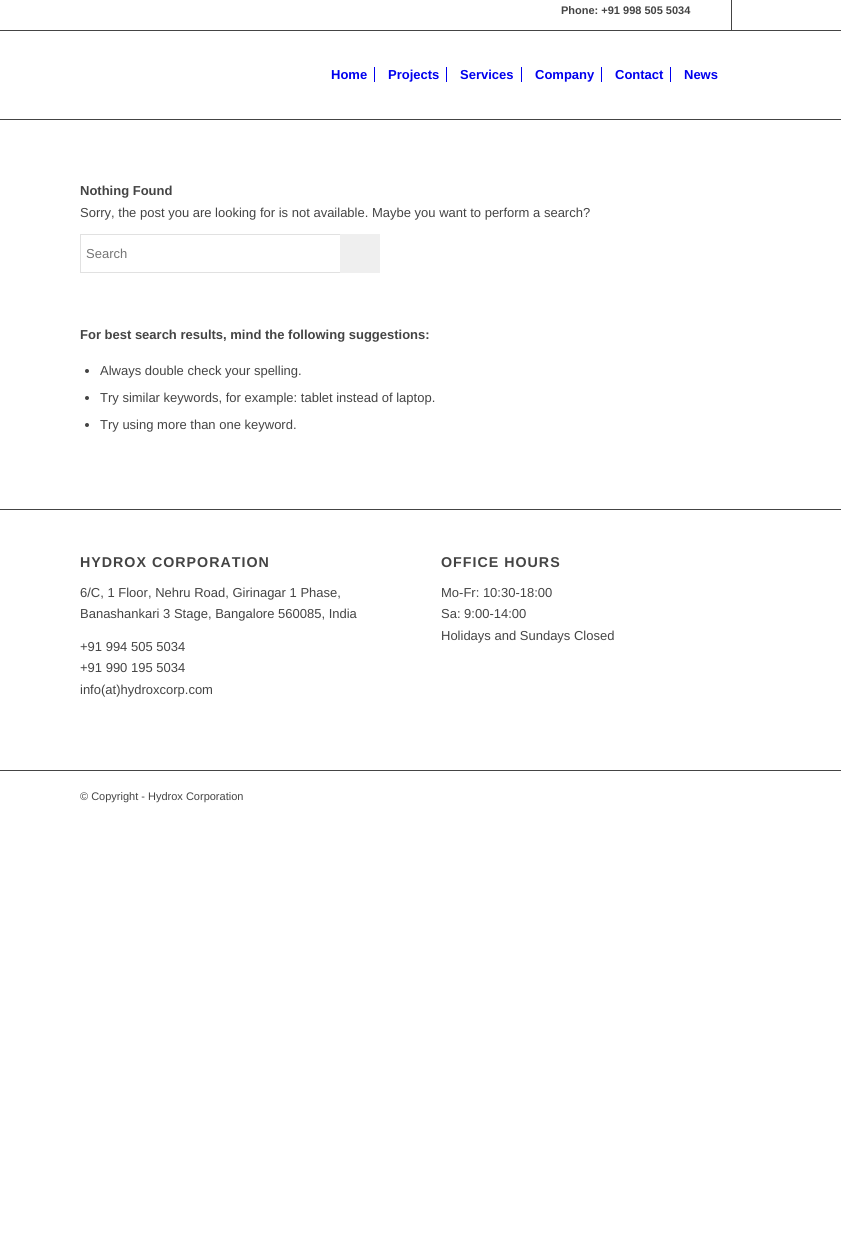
#include <cairo.h>
#include <math.h>
#include <stddef.h>

typedef struct { double x, y; const char *s; } line_t;
typedef struct { double x, y, w, h; unsigned color; } box_t;

static void ink(cairo_t *ctx, unsigned color) {
    cairo_set_source_rgb(ctx, (color >> 16) / 255.0, (color >> 8 & 255) / 255.0, (color & 255) / 255.0);
}

static void write_spaced(cairo_t *ctx, double x, double y, const char *s, double letter, double word) {
    cairo_move_to(ctx, x, y);
    while (*s) {
        char ch[5] = {0};
        int n = 0;
        do ch[n++] = *s++; while ((*s & 0xC0) == 0x80);
        cairo_show_text(ctx, ch);
        cairo_rel_move_to(ctx, letter + word * (*ch == ' '), 0);
    }
}

int main(void) {
    cairo_surface_t *surface = cairo_image_surface_create(CAIRO_FORMAT_RGB24, 841, 1250);
    cairo_t *ctx = cairo_create(surface);
    cairo_font_options_t *options = cairo_font_options_create();
    cairo_font_options_set_hint_metrics(options, CAIRO_HINT_METRICS_OFF);
    cairo_font_options_set_hint_style(options, CAIRO_HINT_STYLE_NONE);
    cairo_set_font_options(ctx, options);
    cairo_set_miter_limit(ctx, 4);
    ink(ctx, 0xFFFFFF);
    cairo_paint(ctx);
    cairo_select_font_face(ctx, "Liberation Sans", CAIRO_FONT_SLANT_NORMAL, CAIRO_FONT_WEIGHT_BOLD);
    cairo_set_font_size(ctx, 11);
    ink(ctx, 0x444444);
    cairo_move_to(ctx, 561, 14);
    cairo_show_text(ctx, "Phone: +91 998 505 5034");
    {
        static const box_t items[] = {
            {731, 0, 1, 30, 0x444444},
            {0, 30, 841, 1, 0x444444},
            {0, 119, 841, 1, 0x444444},
        };
        for (size_t i = 0; i < sizeof items / sizeof *items; i++) {
            ink(ctx, items[i].color);
            cairo_rectangle(ctx, items[i].x, items[i].y, items[i].w, items[i].h);
            cairo_fill(ctx);
        }
    }
    cairo_set_font_size(ctx, 13);
    ink(ctx, 0x0000EE);
    cairo_move_to(ctx, 331, 79);
    cairo_show_text(ctx, "Home");
    cairo_move_to(ctx, 388, 79);
    cairo_show_text(ctx, "Projects");
    cairo_rectangle(ctx, 374, 67, 1, 15);
    cairo_fill(ctx);
    cairo_move_to(ctx, 460, 79);
    cairo_show_text(ctx, "Services");
    cairo_rectangle(ctx, 446, 67, 1, 15);
    cairo_fill(ctx);
    cairo_move_to(ctx, 535, 79);
    cairo_show_text(ctx, "Company");
    cairo_rectangle(ctx, 521, 67, 1, 15);
    cairo_fill(ctx);
    cairo_move_to(ctx, 615, 79);
    cairo_show_text(ctx, "Contact");
    cairo_rectangle(ctx, 601, 67, 1, 15);
    cairo_fill(ctx);
    cairo_move_to(ctx, 684, 79);
    cairo_show_text(ctx, "News");
    cairo_rectangle(ctx, 670, 67, 1, 15);
    cairo_fill(ctx);
    ink(ctx, 0x444444);
    cairo_move_to(ctx, 80, 195);
    cairo_show_text(ctx, "Nothing Found");
    cairo_select_font_face(ctx, "Liberation Sans", CAIRO_FONT_SLANT_NORMAL, CAIRO_FONT_WEIGHT_NORMAL);
    cairo_move_to(ctx, 80, 217);
    cairo_show_text(ctx, "Sorry, the post you are looking for is not available. Maybe you want to perform a search?");
    cairo_rectangle(ctx, 80.5, 234.5, 299, 38);
    ink(ctx, 0xE1E1E1);
    cairo_set_line_width(ctx, 1);
    cairo_stroke(ctx);
    ink(ctx, 0x757575);
    cairo_move_to(ctx, 86, 258);
    cairo_show_text(ctx, "Search");
    ink(ctx, 0xEFEFEF);
    cairo_rectangle(ctx, 340, 234, 40, 39);
    cairo_fill(ctx);
    cairo_select_font_face(ctx, "Liberation Sans", CAIRO_FONT_SLANT_NORMAL, CAIRO_FONT_WEIGHT_BOLD);
    ink(ctx, 0x444444);
    cairo_move_to(ctx, 80, 339);
    cairo_show_text(ctx, "For best search results, mind the following suggestions:");
    cairo_new_path(ctx);
    cairo_arc(ctx, 87, 371, 2, 0, 2 * M_PI);
    cairo_fill(ctx);
    cairo_select_font_face(ctx, "Liberation Sans", CAIRO_FONT_SLANT_NORMAL, CAIRO_FONT_WEIGHT_NORMAL);
    cairo_move_to(ctx, 100, 375);
    cairo_show_text(ctx, "Always double check your spelling.");
    cairo_new_path(ctx);
    cairo_arc(ctx, 87, 398, 2, 0, 2 * M_PI);
    cairo_fill(ctx);
    cairo_move_to(ctx, 100, 402);
    cairo_show_text(ctx, "Try similar keywords, for example: tablet instead of laptop.");
    cairo_new_path(ctx);
    cairo_arc(ctx, 87, 425, 2, 0, 2 * M_PI);
    cairo_fill(ctx);
    cairo_move_to(ctx, 100, 429);
    cairo_show_text(ctx, "Try using more than one keyword.");
    cairo_rectangle(ctx, 0, 509, 841, 1);
    cairo_fill(ctx);
    cairo_select_font_face(ctx, "Liberation Sans", CAIRO_FONT_SLANT_NORMAL, CAIRO_FONT_WEIGHT_BOLD);
    cairo_set_font_size(ctx, 14.25);
    write_spaced(ctx, 80, 567, "HYDROX CORPORATION", 1, 0);
    cairo_select_font_face(ctx, "Liberation Sans", CAIRO_FONT_SLANT_NORMAL, CAIRO_FONT_WEIGHT_NORMAL);
    cairo_set_font_size(ctx, 13);
    {
        static const line_t items[] = {
            {80, 597, "6/C, 1 Floor, Nehru Road, Girinagar 1 Phase,"},
            {80, 618, "Banashankari 3 Stage, Bangalore 560085, India"},
            {80, 651, "+91 994 505 5034"},
            {80, 672, "+91 990 195 5034"},
            {80, 694, "info(at)hydroxcorp.com"},
        };
        for (size_t i = 0; i < sizeof items / sizeof *items; i++) {
            cairo_move_to(ctx, items[i].x, items[i].y);
            cairo_show_text(ctx, items[i].s);
        }
    }
    cairo_select_font_face(ctx, "Liberation Sans", CAIRO_FONT_SLANT_NORMAL, CAIRO_FONT_WEIGHT_BOLD);
    cairo_set_font_size(ctx, 14.25);
    write_spaced(ctx, 441, 567, "OFFICE HOURS", 1, 0);
    cairo_select_font_face(ctx, "Liberation Sans", CAIRO_FONT_SLANT_NORMAL, CAIRO_FONT_WEIGHT_NORMAL);
    cairo_set_font_size(ctx, 13);
    {
        static const line_t items[] = {
            {441, 597, "Mo-Fr: 10:30-18:00"},
            {441, 618, "Sa: 9:00-14:00"},
            {441, 640, "Holidays and Sundays Closed"},
        };
        for (size_t i = 0; i < sizeof items / sizeof *items; i++) {
            cairo_move_to(ctx, items[i].x, items[i].y);
            cairo_show_text(ctx, items[i].s);
        }
    }
    cairo_rectangle(ctx, 0, 770, 841, 1);
    cairo_fill(ctx);
    cairo_set_font_size(ctx, 11);
    cairo_move_to(ctx, 80, 800);
    cairo_show_text(ctx, "© Copyright - Hydrox Corporation");
    cairo_surface_write_to_png(surface, "image.png");
    cairo_font_options_destroy(options);
    cairo_destroy(ctx);
    cairo_surface_destroy(surface);
    return 0;
}
